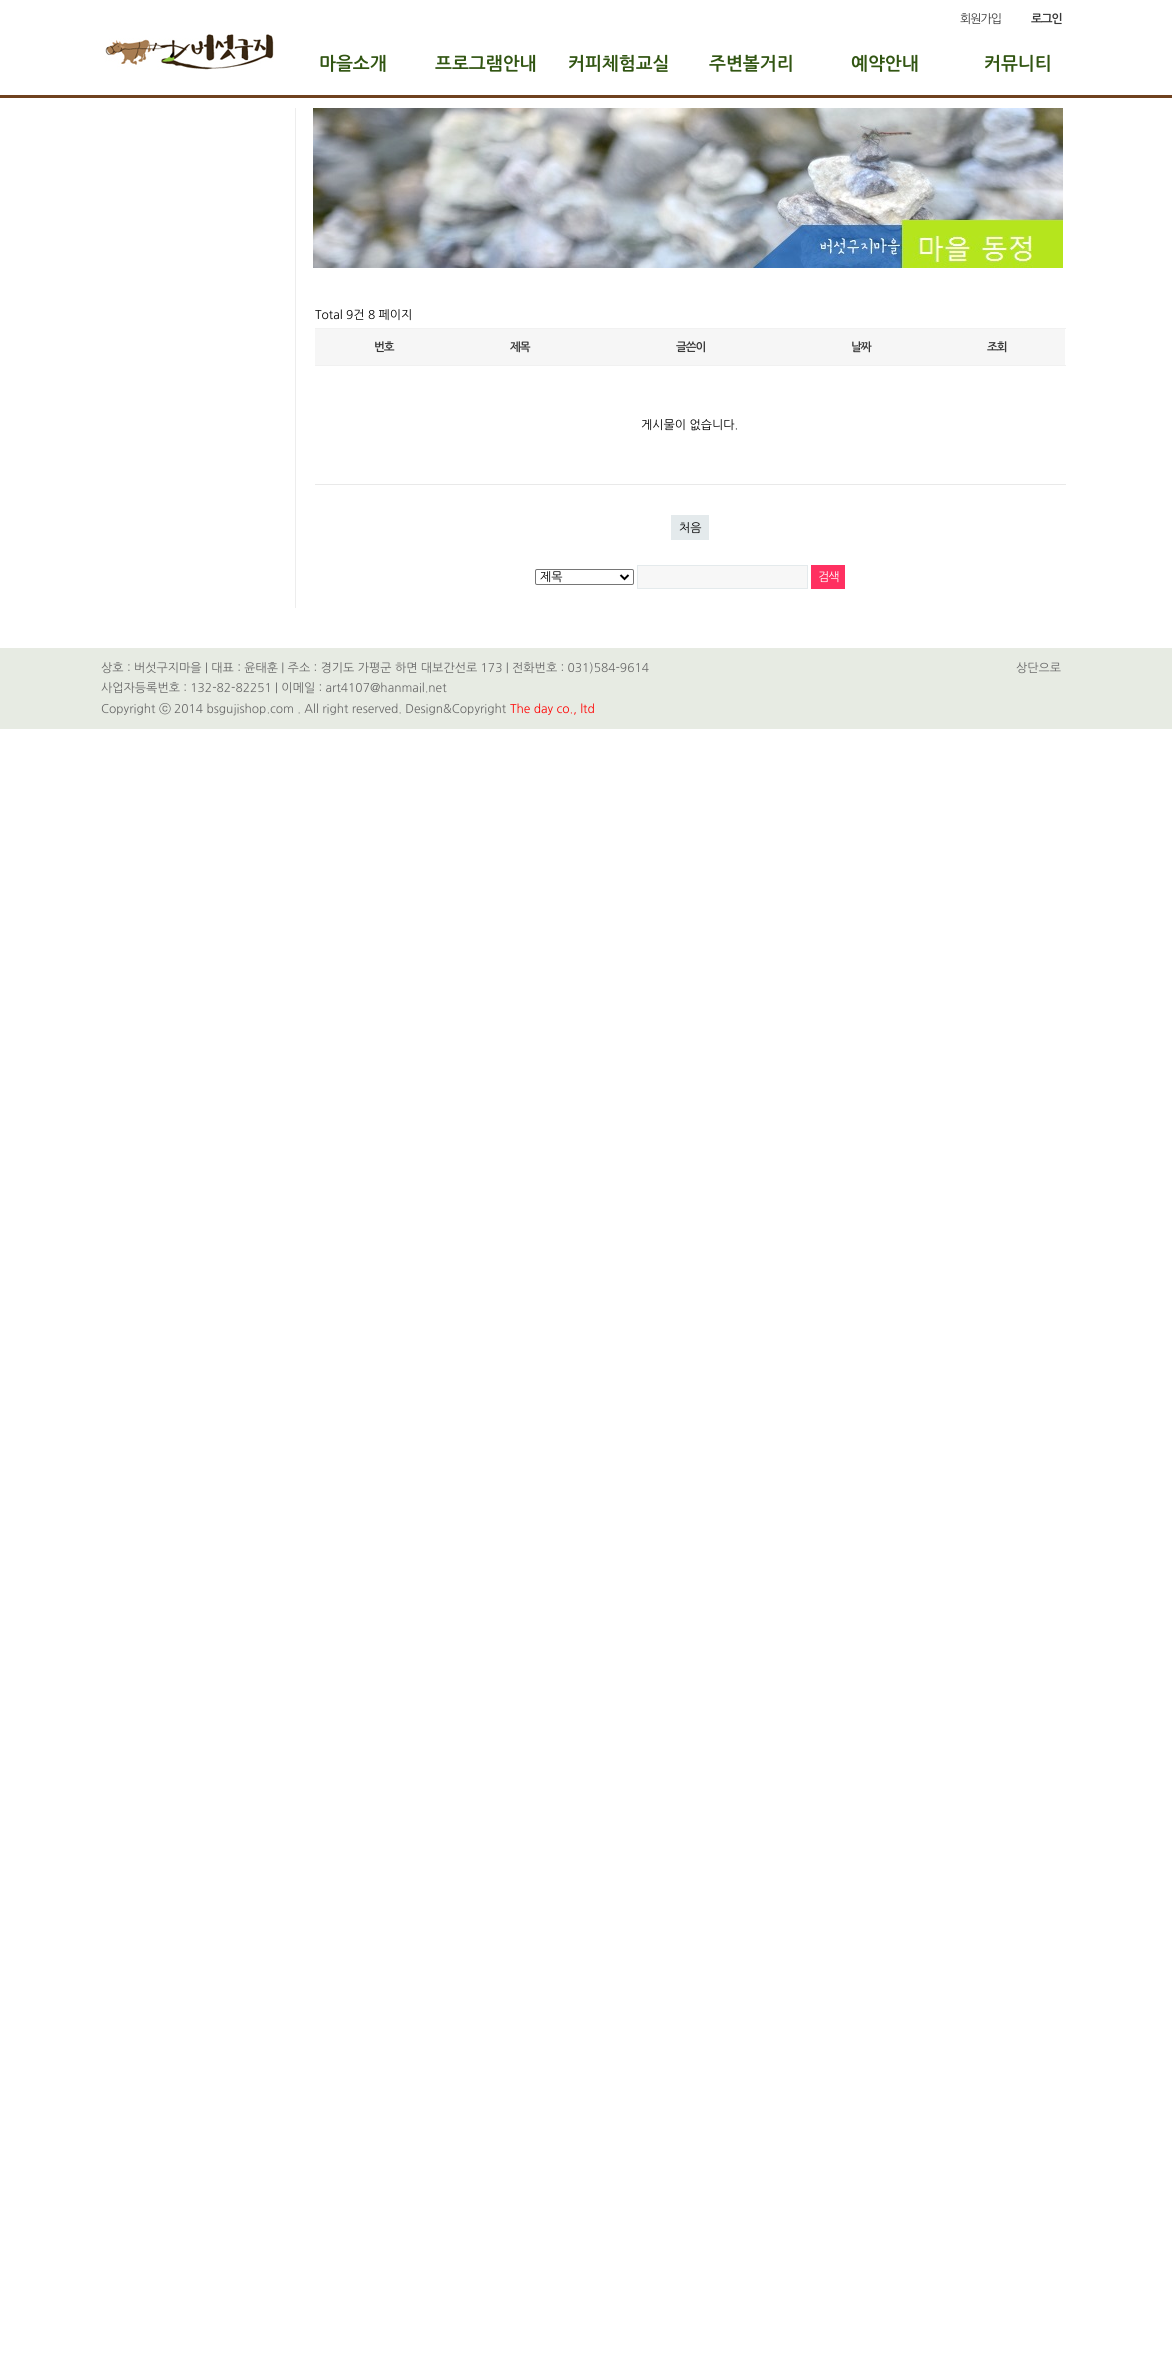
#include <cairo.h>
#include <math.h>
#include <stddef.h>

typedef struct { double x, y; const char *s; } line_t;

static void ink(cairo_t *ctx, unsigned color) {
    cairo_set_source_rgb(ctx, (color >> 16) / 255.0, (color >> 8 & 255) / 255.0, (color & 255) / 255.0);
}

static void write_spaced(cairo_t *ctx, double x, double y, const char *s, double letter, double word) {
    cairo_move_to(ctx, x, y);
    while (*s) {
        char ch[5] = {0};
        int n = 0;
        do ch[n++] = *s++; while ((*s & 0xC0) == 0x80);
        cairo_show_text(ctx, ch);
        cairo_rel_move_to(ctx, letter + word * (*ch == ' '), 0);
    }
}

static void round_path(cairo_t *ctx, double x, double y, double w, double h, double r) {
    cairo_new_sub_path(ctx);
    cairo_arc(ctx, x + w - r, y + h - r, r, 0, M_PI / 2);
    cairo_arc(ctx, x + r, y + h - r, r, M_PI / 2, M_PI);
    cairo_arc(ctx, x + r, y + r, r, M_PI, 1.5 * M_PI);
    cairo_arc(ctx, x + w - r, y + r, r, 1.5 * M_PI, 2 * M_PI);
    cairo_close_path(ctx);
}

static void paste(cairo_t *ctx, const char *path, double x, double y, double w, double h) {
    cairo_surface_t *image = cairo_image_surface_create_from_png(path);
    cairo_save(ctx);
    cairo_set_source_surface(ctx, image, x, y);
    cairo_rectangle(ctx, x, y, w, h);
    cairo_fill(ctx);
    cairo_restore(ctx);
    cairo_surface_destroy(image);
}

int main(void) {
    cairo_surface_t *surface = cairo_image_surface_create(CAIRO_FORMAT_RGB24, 1172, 2359);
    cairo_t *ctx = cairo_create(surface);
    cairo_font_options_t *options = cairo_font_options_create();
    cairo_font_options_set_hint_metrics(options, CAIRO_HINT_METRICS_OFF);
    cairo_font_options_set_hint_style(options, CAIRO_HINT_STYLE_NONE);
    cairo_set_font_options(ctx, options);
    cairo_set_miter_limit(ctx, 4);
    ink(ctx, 0xFFFFFF);
    cairo_paint(ctx);
    cairo_select_font_face(ctx, "NanumGothic", CAIRO_FONT_SLANT_NORMAL, CAIRO_FONT_WEIGHT_NORMAL);
    cairo_set_font_size(ctx, 12);
    ink(ctx, 0x383838);
    write_spaced(ctx, 960, 23, "회원가입", -1, 0);
    cairo_select_font_face(ctx, "NanumGothic", CAIRO_FONT_SLANT_NORMAL, CAIRO_FONT_WEIGHT_BOLD);
    write_spaced(ctx, 1031, 23, "로그인", -1, 0);
    paste(ctx, "media/1.png", 105, 34, 169, 36);
    cairo_set_font_size(ctx, 18);
    ink(ctx, 0x315512);
    {
        static const line_t items[] = {
            {319, 70, "마을소개"},
            {435, 70, "프로그램안내"},
            {568, 70, "커피체험교실"},
            {709, 70, "주변볼거리"},
            {851, 70, "예약안내"},
            {984, 70, "커뮤니티"},
        };
        for (size_t i = 0; i < sizeof items / sizeof *items; i++) {
            cairo_move_to(ctx, items[i].x, items[i].y);
            cairo_show_text(ctx, items[i].s);
        }
    }
    ink(ctx, 0x6F411F);
    cairo_rectangle(ctx, 0, 95, 1172, 3);
    cairo_fill(ctx);
    ink(ctx, 0xEDEDED);
    cairo_rectangle(ctx, 295, 108, 1, 500);
    cairo_fill(ctx);
    paste(ctx, "media/2.png", 313, 108, 750, 160);
    cairo_select_font_face(ctx, "NanumGothic", CAIRO_FONT_SLANT_NORMAL, CAIRO_FONT_WEIGHT_NORMAL);
    cairo_set_font_size(ctx, 12);
    ink(ctx, 0x000000);
    cairo_move_to(ctx, 315, 319);
    cairo_show_text(ctx, "Total 9건 8 페이지");
    ink(ctx, 0xF6F6F6);
    cairo_rectangle(ctx, 315, 329, 750, 36);
    cairo_fill(ctx);
    cairo_select_font_face(ctx, "NanumGothic", CAIRO_FONT_SLANT_NORMAL, CAIRO_FONT_WEIGHT_BOLD);
    cairo_set_font_size(ctx, 11.5);
    ink(ctx, 0x383838);
    {
        static const line_t items[] = {
            {374, 351, "번호"},
            {510, 351, "제목"},
            {676, 351, "글쓴이"},
            {851, 351, "날짜"},
        };
        for (size_t i = 0; i < sizeof items / sizeof *items; i++) {
            write_spaced(ctx, items[i].x, items[i].y, items[i].s, -1, 0);
        }
    }
    ink(ctx, 0xF1F1F1);
    cairo_rectangle(ctx, 315, 328, 751, 1);
    cairo_fill(ctx);
    cairo_rectangle(ctx, 315, 365, 751, 1);
    cairo_fill(ctx);
    ink(ctx, 0x383838);
    write_spaced(ctx, 987, 351, "조회", -1, 0);
    ink(ctx, 0xE9E9E9);
    cairo_rectangle(ctx, 315, 484, 751, 1);
    cairo_fill(ctx);
    cairo_select_font_face(ctx, "NanumGothic", CAIRO_FONT_SLANT_NORMAL, CAIRO_FONT_WEIGHT_NORMAL);
    cairo_set_font_size(ctx, 12);
    ink(ctx, 0x000000);
    cairo_move_to(ctx, 641, 429);
    cairo_show_text(ctx, "게시물이 없습니다.");
    ink(ctx, 0xE4EAEC);
    cairo_rectangle(ctx, 671, 515, 38, 25);
    cairo_fill(ctx);
    ink(ctx, 0x000000);
    cairo_move_to(ctx, 679, 532);
    cairo_show_text(ctx, "처음");
    round_path(ctx, 535.5, 569.5, 98, 15, 1.5);
    ink(ctx, 0x767676);
    cairo_set_line_width(ctx, 1);
    cairo_stroke(ctx);
    cairo_new_path(ctx);
    cairo_move_to(ctx, 620.5, 575);
    cairo_line_to(ctx, 624.5, 579);
    cairo_line_to(ctx, 628.5, 575);
    ink(ctx, 0x000000);
    cairo_set_line_width(ctx, 2);
    cairo_stroke(ctx);
    cairo_move_to(ctx, 540, 581);
    cairo_show_text(ctx, "제목");
    ink(ctx, 0xF7F7F7);
    cairo_rectangle(ctx, 637.5, 565.5, 170, 23);
    cairo_fill_preserve(ctx);
    ink(ctx, 0xE4EAEC);
    cairo_set_line_width(ctx, 1);
    cairo_stroke(ctx);
    ink(ctx, 0xFF3061);
    cairo_rectangle(ctx, 811, 565, 34, 24);
    cairo_fill(ctx);
    ink(ctx, 0xFFFFFF);
    write_spaced(ctx, 818, 581, "검색", -1, 0);
    ink(ctx, 0xE7EBE3);
    cairo_rectangle(ctx, 0, 648, 1172, 81);
    cairo_fill(ctx);
    ink(ctx, 0x676767);
    {
        static const line_t items[] = {
            {101, 672, "상호 : 버섯구지마을 | 대표 : 윤태훈 | 주소 : 경기도 가평군 하면 대보간선로 173 | 전화번호 : 031)584-9614"},
            {1016, 672, "상단으로"},
            {101, 692, "사업자등록번호 : 132-82-82251 | 이메일 : art4107@hanmail.net"},
            {101, 713, "Copyright"},
        };
        for (size_t i = 0; i < sizeof items / sizeof *items; i++) {
            cairo_move_to(ctx, items[i].x, items[i].y);
            cairo_show_text(ctx, items[i].s);
        }
    }
    cairo_select_font_face(ctx, "WenQuanYi Zen Hei Medium", CAIRO_FONT_SLANT_NORMAL, CAIRO_FONT_WEIGHT_NORMAL);
    cairo_move_to(ctx, 159, 713);
    cairo_show_text(ctx, "ⓒ");
    cairo_select_font_face(ctx, "NanumGothic", CAIRO_FONT_SLANT_NORMAL, CAIRO_FONT_WEIGHT_NORMAL);
    cairo_move_to(ctx, 174, 713);
    cairo_show_text(ctx, "2014 bsgujishop.com . All right reserved. Design&Copyright");
    ink(ctx, 0xFF0000);
    cairo_move_to(ctx, 510, 713);
    cairo_show_text(ctx, "The day co., ltd");
    cairo_surface_write_to_png(surface, "image.png");
    cairo_font_options_destroy(options);
    cairo_destroy(ctx);
    cairo_surface_destroy(surface);
    return 0;
}
